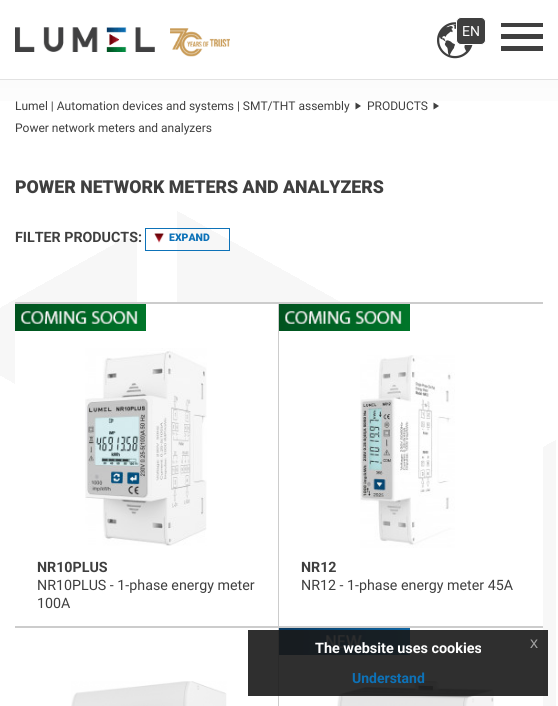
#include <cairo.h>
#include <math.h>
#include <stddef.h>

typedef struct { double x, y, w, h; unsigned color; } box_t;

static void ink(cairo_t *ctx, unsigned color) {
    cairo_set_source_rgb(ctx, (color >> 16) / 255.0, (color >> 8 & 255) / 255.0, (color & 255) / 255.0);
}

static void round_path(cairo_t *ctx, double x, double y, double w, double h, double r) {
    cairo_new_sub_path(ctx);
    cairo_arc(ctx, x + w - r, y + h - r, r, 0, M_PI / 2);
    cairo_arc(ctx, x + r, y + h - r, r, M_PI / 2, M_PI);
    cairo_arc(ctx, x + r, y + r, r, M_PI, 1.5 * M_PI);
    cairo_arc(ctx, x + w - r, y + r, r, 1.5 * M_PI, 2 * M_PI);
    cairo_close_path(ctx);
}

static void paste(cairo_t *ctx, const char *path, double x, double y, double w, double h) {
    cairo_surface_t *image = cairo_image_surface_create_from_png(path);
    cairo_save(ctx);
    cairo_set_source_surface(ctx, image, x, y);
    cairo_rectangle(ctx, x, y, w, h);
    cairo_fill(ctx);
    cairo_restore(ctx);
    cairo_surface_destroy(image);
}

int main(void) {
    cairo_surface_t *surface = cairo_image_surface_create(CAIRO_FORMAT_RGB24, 558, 706);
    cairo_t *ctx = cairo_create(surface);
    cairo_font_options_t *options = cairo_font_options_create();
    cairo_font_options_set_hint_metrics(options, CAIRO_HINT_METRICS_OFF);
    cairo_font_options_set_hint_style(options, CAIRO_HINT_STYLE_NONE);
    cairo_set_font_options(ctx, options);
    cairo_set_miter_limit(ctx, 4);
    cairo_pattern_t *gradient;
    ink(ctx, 0xFFFFFF);
    cairo_paint(ctx);
    ink(ctx, 0xE2E2E2);
    cairo_rectangle(ctx, 0, 79, 558, 1);
    cairo_fill(ctx);
    paste(ctx, "media/1.png", 15, 27, 140, 25);
    paste(ctx, "media/2.png", 170, 28, 60, 29);
    paste(ctx, "media/3.png", 437, 22, 36, 37);
    ink(ctx, 0x3F3F3F);
    round_path(ctx, 456.5, 17.5, 29, 27, 4.5);
    cairo_fill_preserve(ctx);
    ink(ctx, 0xFFFFFF);
    cairo_set_line_width(ctx, 1);
    cairo_stroke(ctx);
    cairo_select_font_face(ctx, "Roboto", CAIRO_FONT_SLANT_NORMAL, CAIRO_FONT_WEIGHT_NORMAL);
    cairo_set_font_size(ctx, 14);
    cairo_move_to(ctx, 462, 36);
    cairo_show_text(ctx, "EN");
    ink(ctx, 0x3F3F3F);
    cairo_new_path(ctx);
    cairo_move_to(ctx, 501, 51);
    cairo_line_to(ctx, 543, 51);
    cairo_line_to(ctx, 543, 46);
    cairo_line_to(ctx, 501, 46);
    cairo_close_path(ctx);
    cairo_move_to(ctx, 501, 39);
    cairo_line_to(ctx, 543, 39);
    cairo_line_to(ctx, 543, 34);
    cairo_line_to(ctx, 501, 34);
    cairo_close_path(ctx);
    cairo_move_to(ctx, 501, 23);
    cairo_line_to(ctx, 501, 27);
    cairo_line_to(ctx, 543, 27);
    cairo_line_to(ctx, 543, 23);
    cairo_close_path(ctx);
    cairo_fill(ctx);
    gradient = cairo_pattern_create_linear(279, 80, 279, 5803);
    cairo_pattern_add_color_stop_rgba(gradient, 0, 0.984, 0.984, 0.984, 1);
    cairo_pattern_add_color_stop_rgba(gradient, 0.01, 1, 1, 1, 1);
    cairo_set_source(ctx, gradient);
    cairo_pattern_destroy(gradient);
    cairo_rectangle(ctx, 0, 80, 558, 21);
    cairo_fill(ctx);
    paste(ctx, "media/4.png", 0, 211, 556, 495);
    cairo_set_font_size(ctx, 12);
    ink(ctx, 0x3F3F3F);
    cairo_move_to(ctx, 15, 110);
    cairo_show_text(ctx, "Lumel | Automation devices and systems | SMT/THT assembly");
    cairo_new_path(ctx);
    cairo_move_to(ctx, 355.5, 102.5);
    cairo_line_to(ctx, 355.5, 109.5);
    cairo_line_to(ctx, 361, 106);
    cairo_close_path(ctx);
    cairo_fill(ctx);
    cairo_move_to(ctx, 367, 110);
    cairo_show_text(ctx, "PRODUCTS");
    cairo_new_path(ctx);
    cairo_move_to(ctx, 433.5, 102.5);
    cairo_line_to(ctx, 433.5, 109.5);
    cairo_line_to(ctx, 439, 106);
    cairo_close_path(ctx);
    cairo_fill(ctx);
    cairo_move_to(ctx, 15, 132);
    cairo_show_text(ctx, "Power network meters and analyzers");
    cairo_select_font_face(ctx, "Roboto Black", CAIRO_FONT_SLANT_NORMAL, CAIRO_FONT_WEIGHT_NORMAL);
    cairo_set_font_size(ctx, 17.75);
    cairo_move_to(ctx, 15, 193);
    cairo_show_text(ctx, "POWER NETWORK METERS AND ANALYZERS");
    cairo_select_font_face(ctx, "Roboto", CAIRO_FONT_SLANT_NORMAL, CAIRO_FONT_WEIGHT_BOLD);
    cairo_set_font_size(ctx, 14.25);
    cairo_move_to(ctx, 15, 242);
    cairo_show_text(ctx, "FILTER PRODUCTS:");
    cairo_rectangle(ctx, 145.5, 228.5, 84, 22);
    ink(ctx, 0x0D72B8);
    cairo_stroke(ctx);
    paste(ctx, "media/5.png", 154, 233, 11, 10);
    cairo_select_font_face(ctx, "Roboto Black", CAIRO_FONT_SLANT_NORMAL, CAIRO_FONT_WEIGHT_NORMAL);
    cairo_set_font_size(ctx, 10.5);
    cairo_move_to(ctx, 169, 241);
    cairo_show_text(ctx, "EXPAND");
    {
        static const box_t items[] = {
            {15, 304, 263, 322, 0xFFFFFF},
            {15, 302, 528, 2, 0xCCCCCC},
            {278, 302, 1, 404, 0xCCCCCC},
            {15, 626, 528, 2, 0xCCCCCC},
        };
        for (size_t i = 0; i < sizeof items / sizeof *items; i++) {
            ink(ctx, items[i].color);
            cairo_rectangle(ctx, items[i].x, items[i].y, items[i].w, items[i].h);
            cairo_fill(ctx);
        }
    }
    paste(ctx, "media/6.png", 15, 304, 131, 27);
    paste(ctx, "media/7.png", 85, 348, 122, 198);
    cairo_select_font_face(ctx, "Roboto", CAIRO_FONT_SLANT_NORMAL, CAIRO_FONT_WEIGHT_BOLD);
    cairo_set_font_size(ctx, 14.25);
    ink(ctx, 0x3F3F3F);
    cairo_move_to(ctx, 37, 572);
    cairo_show_text(ctx, "NR10PLUS");
    cairo_select_font_face(ctx, "Roboto", CAIRO_FONT_SLANT_NORMAL, CAIRO_FONT_WEIGHT_NORMAL);
    cairo_move_to(ctx, 37, 590);
    cairo_show_text(ctx, "NR10PLUS - 1-phase energy meter");
    cairo_move_to(ctx, 37, 608);
    cairo_show_text(ctx, "100A");
    ink(ctx, 0xFFFFFF);
    cairo_rectangle(ctx, 279, 304, 264, 322);
    cairo_fill(ctx);
    paste(ctx, "media/8.png", 279, 304, 131, 27);
    paste(ctx, "media/9.png", 360, 355, 95, 193);
    cairo_select_font_face(ctx, "Roboto", CAIRO_FONT_SLANT_NORMAL, CAIRO_FONT_WEIGHT_BOLD);
    ink(ctx, 0x3F3F3F);
    cairo_move_to(ctx, 301, 572);
    cairo_show_text(ctx, "NR12");
    cairo_select_font_face(ctx, "Roboto", CAIRO_FONT_SLANT_NORMAL, CAIRO_FONT_WEIGHT_NORMAL);
    cairo_move_to(ctx, 301, 590);
    cairo_show_text(ctx, "NR12 - 1-phase energy meter 45A");
    ink(ctx, 0xFFFFFF);
    cairo_rectangle(ctx, 72, 628, 206, 78);
    cairo_fill(ctx);
    paste(ctx, "media/10.png", 71, 681, 156, 25);
    cairo_rectangle(ctx, 279, 628, 264, 78);
    cairo_fill(ctx);
    paste(ctx, "media/11.png", 279, 628, 131, 27);
    paste(ctx, "media/12.png", 337, 681, 157, 25);
    cairo_set_source_rgba(ctx, 0.098, 0.098, 0.098, 0.9);
    cairo_rectangle(ctx, 248, 630, 300, 66);
    cairo_fill(ctx);
    cairo_select_font_face(ctx, "Roboto", CAIRO_FONT_SLANT_NORMAL, CAIRO_FONT_WEIGHT_BOLD);
    cairo_set_font_size(ctx, 14.4);
    ink(ctx, 0xFFFFFF);
    cairo_move_to(ctx, 315, 653);
    cairo_show_text(ctx, "The website uses cookies");
    cairo_select_font_face(ctx, "Liberation Sans", CAIRO_FONT_SLANT_NORMAL, CAIRO_FONT_WEIGHT_NORMAL);
    cairo_set_font_size(ctx, 16);
    ink(ctx, 0xA2A2A2);
    cairo_move_to(ctx, 530, 648);
    cairo_show_text(ctx, "x");
    cairo_select_font_face(ctx, "Roboto", CAIRO_FONT_SLANT_NORMAL, CAIRO_FONT_WEIGHT_BOLD);
    cairo_set_font_size(ctx, 14);
    ink(ctx, 0x0D72B8);
    cairo_move_to(ctx, 352, 683);
    cairo_show_text(ctx, "Understand");
    cairo_surface_write_to_png(surface, "image.png");
    cairo_font_options_destroy(options);
    cairo_destroy(ctx);
    cairo_surface_destroy(surface);
    return 0;
}
